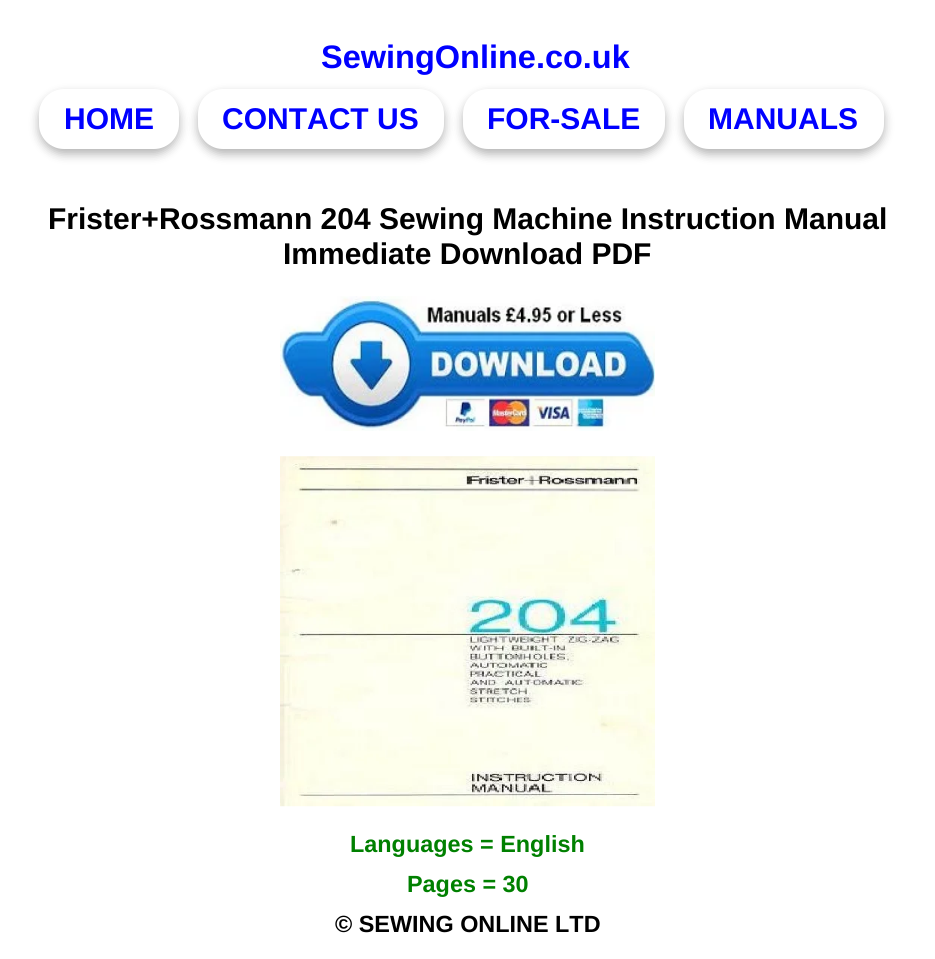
#include <cairo.h>
#include <math.h>
#include <stddef.h>


static void ink(cairo_t *ctx, unsigned color) {
    cairo_set_source_rgb(ctx, (color >> 16) / 255.0, (color >> 8 & 255) / 255.0, (color & 255) / 255.0);
}

static void round_path(cairo_t *ctx, double x, double y, double w, double h, double r) {
    cairo_new_sub_path(ctx);
    cairo_arc(ctx, x + w - r, y + h - r, r, 0, M_PI / 2);
    cairo_arc(ctx, x + r, y + h - r, r, M_PI / 2, M_PI);
    cairo_arc(ctx, x + r, y + r, r, M_PI, 1.5 * M_PI);
    cairo_arc(ctx, x + w - r, y + r, r, 1.5 * M_PI, 2 * M_PI);
    cairo_close_path(ctx);
}

static void blur_box(cairo_t *ctx, double x, double y, double w, double h, double r, double blur, double alpha) {
    cairo_push_group_with_content(ctx, CAIRO_CONTENT_ALPHA);
    cairo_set_operator(ctx, CAIRO_OPERATOR_SOURCE);
    for (int i = 15; i >= -15 && fmin(w, h) + blur * i / 3 > 0; i -= 2) {
        double e = blur * i / 6;
        cairo_set_source_rgba(ctx, 0, 0, 0, alpha * erfc((i - 1) / 8.5) / 2);
        round_path(ctx, x - e, y - e, w + 2 * e, h + 2 * e, fmax(0, fmin(r + e + blur * .6, fmin(w, h) / 2 + e)));
        cairo_fill(ctx);
    }
    cairo_pattern_t *soft = cairo_pop_group(ctx);
    cairo_mask(ctx, soft);
    cairo_pattern_destroy(soft);
}

static void paste(cairo_t *ctx, const char *path, double x, double y, double w, double h) {
    cairo_surface_t *image = cairo_image_surface_create_from_png(path);
    cairo_save(ctx);
    cairo_set_source_surface(ctx, image, x, y);
    cairo_rectangle(ctx, x, y, w, h);
    cairo_fill(ctx);
    cairo_restore(ctx);
    cairo_surface_destroy(image);
}

int main(void) {
    cairo_surface_t *surface = cairo_image_surface_create(CAIRO_FORMAT_RGB24, 935, 959);
    cairo_t *ctx = cairo_create(surface);
    cairo_font_options_t *options = cairo_font_options_create();
    cairo_font_options_set_hint_metrics(options, CAIRO_HINT_METRICS_OFF);
    cairo_font_options_set_hint_style(options, CAIRO_HINT_STYLE_NONE);
    cairo_set_font_options(ctx, options);
    cairo_set_miter_limit(ctx, 4);
    ink(ctx, 0xFFFFFF);
    cairo_paint(ctx);
    cairo_select_font_face(ctx, "Liberation Sans", CAIRO_FONT_SLANT_NORMAL, CAIRO_FONT_WEIGHT_BOLD);
    cairo_set_font_size(ctx, 32.5);
    ink(ctx, 0x0000FF);
    cairo_move_to(ctx, 321, 68);
    cairo_show_text(ctx, "SewingOnline.co.uk");
    ink(ctx, 0x000000);
    blur_box(ctx, 39, 94, 140, 60, 25, 5, 0.3);
    ink(ctx, 0xFFFFFF);
    round_path(ctx, 39, 89, 140, 60, 25);
    cairo_fill(ctx);
    cairo_set_font_size(ctx, 30);
    ink(ctx, 0x0000FF);
    cairo_move_to(ctx, 64, 129);
    cairo_show_text(ctx, "HOME");
    ink(ctx, 0x000000);
    blur_box(ctx, 198, 94, 246, 60, 25, 5, 0.3);
    ink(ctx, 0xFFFFFF);
    round_path(ctx, 198, 89, 246, 60, 25);
    cairo_fill(ctx);
    ink(ctx, 0x0000FF);
    cairo_move_to(ctx, 222, 129);
    cairo_show_text(ctx, "CONTACT US");
    ink(ctx, 0x000000);
    blur_box(ctx, 463, 94, 202, 60, 25, 5, 0.3);
    ink(ctx, 0xFFFFFF);
    round_path(ctx, 463, 89, 202, 60, 25);
    cairo_fill(ctx);
    ink(ctx, 0x0000FF);
    cairo_move_to(ctx, 487, 129);
    cairo_show_text(ctx, "FOR-SALE");
    ink(ctx, 0x000000);
    blur_box(ctx, 684, 94, 200, 60, 25, 5, 0.3);
    ink(ctx, 0xFFFFFF);
    round_path(ctx, 684, 89, 200, 60, 25);
    cairo_fill(ctx);
    ink(ctx, 0x0000FF);
    cairo_move_to(ctx, 708, 129);
    cairo_show_text(ctx, "MANUALS");
    ink(ctx, 0x000000);
    cairo_move_to(ctx, 48, 229);
    cairo_show_text(ctx, "Frister+Rossmann 204 Sewing Machine Instruction Manual");
    cairo_move_to(ctx, 283, 264);
    cairo_show_text(ctx, "Immediate Download PDF");
    paste(ctx, "media/1.png", 280, 296, 375, 135);
    paste(ctx, "media/2.png", 280, 456, 375, 351);
    cairo_set_font_size(ctx, 23.4);
    ink(ctx, 0x008000);
    cairo_move_to(ctx, 350, 852);
    cairo_show_text(ctx, "Languages = English");
    cairo_move_to(ctx, 407, 892);
    cairo_show_text(ctx, "Pages = 30");
    ink(ctx, 0x000000);
    cairo_move_to(ctx, 335, 932);
    cairo_show_text(ctx, "© SEWING ONLINE LTD");
    cairo_surface_write_to_png(surface, "image.png");
    cairo_font_options_destroy(options);
    cairo_destroy(ctx);
    cairo_surface_destroy(surface);
    return 0;
}
